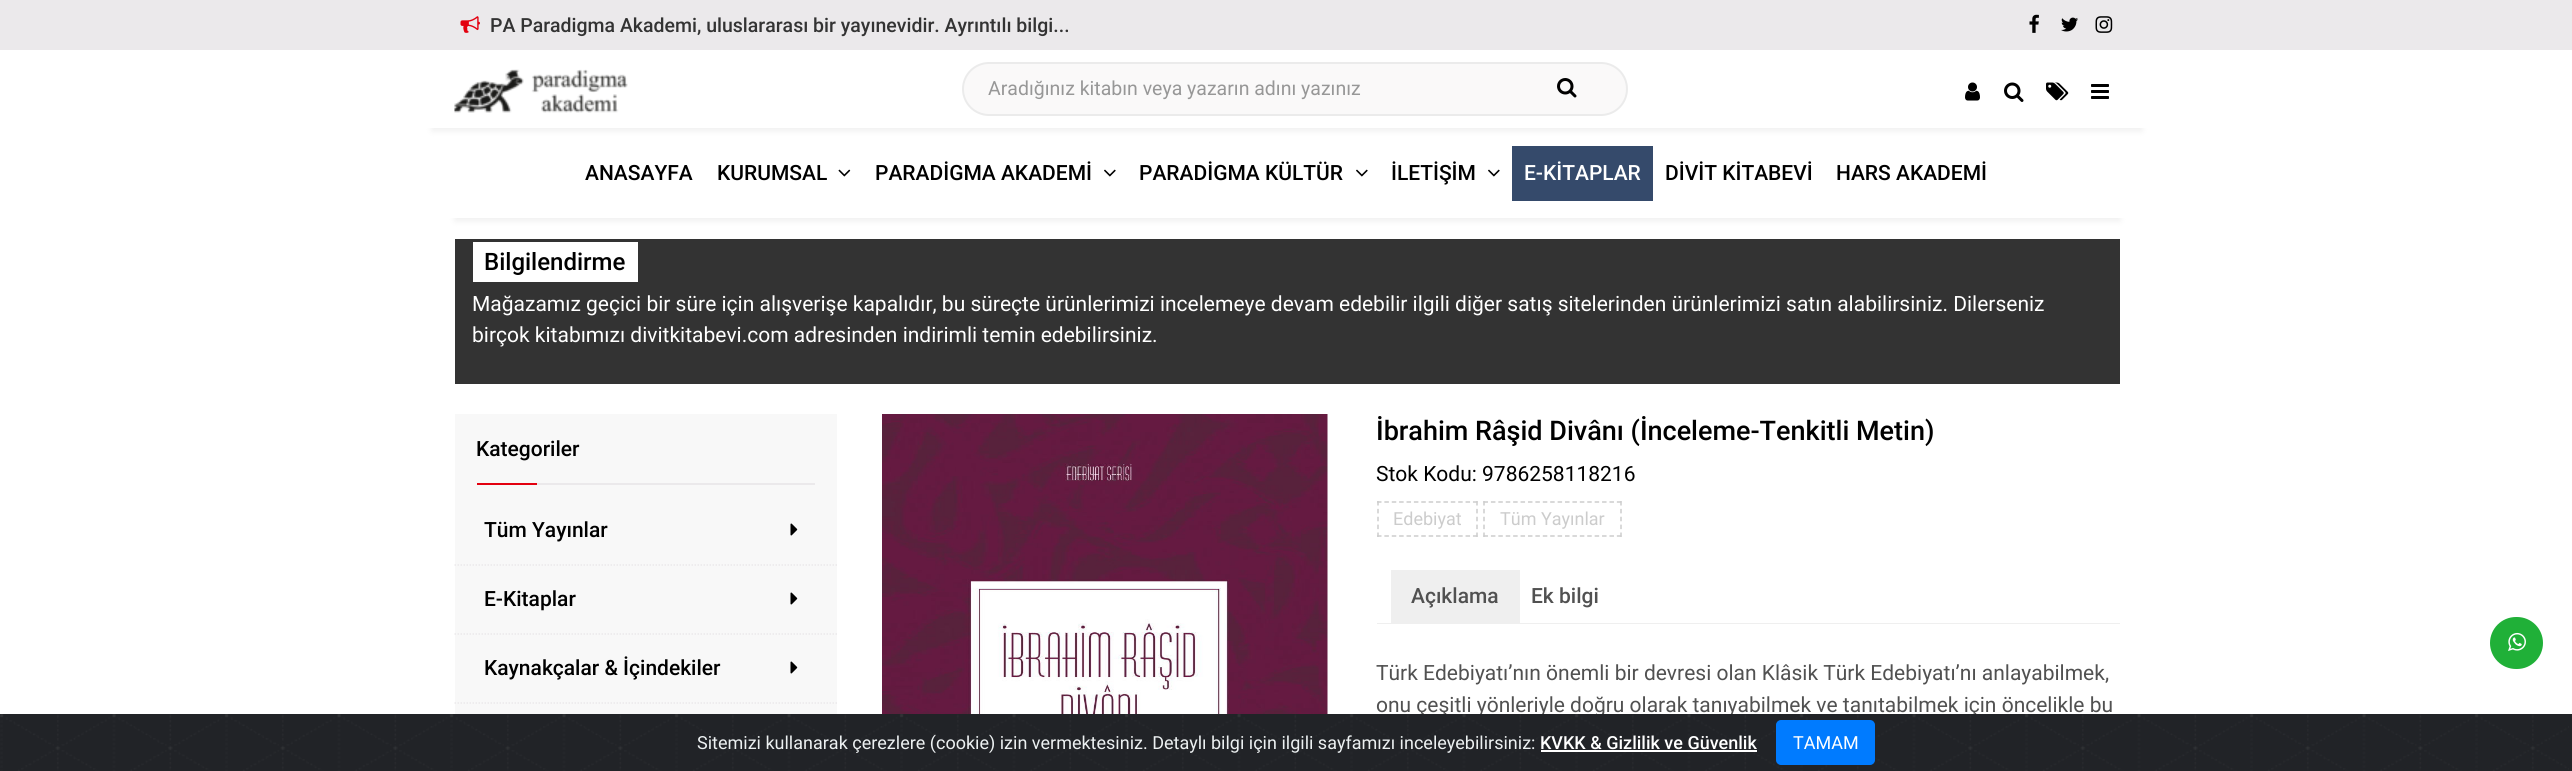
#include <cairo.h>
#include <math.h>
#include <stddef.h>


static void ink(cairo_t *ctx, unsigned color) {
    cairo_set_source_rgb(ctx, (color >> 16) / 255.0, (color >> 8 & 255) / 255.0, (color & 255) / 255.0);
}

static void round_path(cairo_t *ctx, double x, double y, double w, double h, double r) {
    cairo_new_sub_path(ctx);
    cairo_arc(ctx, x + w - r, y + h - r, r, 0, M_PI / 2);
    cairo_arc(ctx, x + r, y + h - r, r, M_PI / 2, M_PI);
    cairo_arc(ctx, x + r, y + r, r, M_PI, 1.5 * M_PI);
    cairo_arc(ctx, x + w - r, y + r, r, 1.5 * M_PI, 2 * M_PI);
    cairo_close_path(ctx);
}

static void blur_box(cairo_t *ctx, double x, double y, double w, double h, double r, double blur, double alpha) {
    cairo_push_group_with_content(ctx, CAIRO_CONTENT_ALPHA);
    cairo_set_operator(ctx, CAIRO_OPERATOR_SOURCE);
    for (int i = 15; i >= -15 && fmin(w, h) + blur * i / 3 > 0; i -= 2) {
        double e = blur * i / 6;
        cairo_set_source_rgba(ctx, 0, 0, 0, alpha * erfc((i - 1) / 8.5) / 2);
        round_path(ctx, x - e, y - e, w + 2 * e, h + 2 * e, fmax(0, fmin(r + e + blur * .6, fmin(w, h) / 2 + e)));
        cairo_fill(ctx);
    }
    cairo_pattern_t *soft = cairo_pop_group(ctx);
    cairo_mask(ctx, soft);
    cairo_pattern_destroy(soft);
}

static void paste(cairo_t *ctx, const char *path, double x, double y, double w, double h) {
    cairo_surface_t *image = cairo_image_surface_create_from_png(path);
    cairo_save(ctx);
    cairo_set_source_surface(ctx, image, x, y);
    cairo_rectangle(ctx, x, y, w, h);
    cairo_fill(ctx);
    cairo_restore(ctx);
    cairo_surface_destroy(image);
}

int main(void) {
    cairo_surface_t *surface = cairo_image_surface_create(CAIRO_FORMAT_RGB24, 2572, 771);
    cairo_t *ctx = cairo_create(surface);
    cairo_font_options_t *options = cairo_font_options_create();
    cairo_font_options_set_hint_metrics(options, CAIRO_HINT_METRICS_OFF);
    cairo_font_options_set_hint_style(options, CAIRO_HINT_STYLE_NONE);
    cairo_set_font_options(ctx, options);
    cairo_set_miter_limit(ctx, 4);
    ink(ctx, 0xFFFFFF);
    cairo_paint(ctx);
    ink(ctx, 0xEBE9EB);
    cairo_rectangle(ctx, 0, 0, 2572, 50);
    cairo_fill(ctx);
    paste(ctx, "media/1.png", 460, 16, 20, 17);
    cairo_select_font_face(ctx, "Roboto Medium", CAIRO_FONT_SLANT_NORMAL, CAIRO_FONT_WEIGHT_NORMAL);
    cairo_set_font_size(ctx, 19.5);
    ink(ctx, 0x333333);
    cairo_move_to(ctx, 490, 32);
    cairo_show_text(ctx, "PA Paradigma Akademi, uluslararası bir yayınevidir. Ayrıntılı bilgi...");
    paste(ctx, "media/2.png", 2029, 14, 10, 19);
    paste(ctx, "media/3.png", 2061, 17, 17, 15);
    paste(ctx, "media/4.png", 2095, 16, 18, 17);
    cairo_save(ctx);
    cairo_set_fill_rule(ctx, CAIRO_FILL_RULE_EVEN_ODD);
    cairo_new_path(ctx);
    cairo_move_to(ctx, 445, 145);
    cairo_line_to(ctx, 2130, 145);
    cairo_line_to(ctx, 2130, 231);
    cairo_line_to(ctx, 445, 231);
    cairo_close_path(ctx);
    cairo_move_to(ctx, 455, 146);
    cairo_line_to(ctx, 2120, 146);
    cairo_line_to(ctx, 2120, 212);
    cairo_line_to(ctx, 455, 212);
    cairo_close_path(ctx);
    cairo_clip(ctx);
    ink(ctx, 0xF0F0F0);
    blur_box(ctx, 455, 155, 1665, 66, 0, 3, 1);
    cairo_restore(ctx);
    cairo_rectangle(ctx, 452, 143, 1671, 72);
    ink(ctx, 0xFFFFFF);
    cairo_set_line_width(ctx, 6);
    cairo_stroke(ctx);
    cairo_save(ctx);
    cairo_set_fill_rule(ctx, CAIRO_FILL_RULE_EVEN_ODD);
    cairo_new_path(ctx);
    cairo_move_to(ctx, 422, 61);
    cairo_line_to(ctx, 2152, 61);
    cairo_line_to(ctx, 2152, 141);
    cairo_line_to(ctx, 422, 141);
    cairo_close_path(ctx);
    cairo_move_to(ctx, 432, 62);
    cairo_line_to(ctx, 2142, 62);
    cairo_line_to(ctx, 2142, 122);
    cairo_line_to(ctx, 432, 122);
    cairo_close_path(ctx);
    cairo_clip(ctx);
    ink(ctx, 0xF0F0F0);
    blur_box(ctx, 432, 71, 1710, 60, 0, 3, 1);
    cairo_restore(ctx);
    cairo_rectangle(ctx, 429, 59, 1716, 66);
    cairo_stroke(ctx);
    paste(ctx, "media/5.png", 454, 69, 174, 44);
    ink(ctx, 0xFAF9F9);
    round_path(ctx, 963, 63, 664, 52, 26);
    cairo_fill_preserve(ctx);
    ink(ctx, 0xEBEBEB);
    cairo_set_line_width(ctx, 2);
    cairo_stroke(ctx);
    cairo_select_font_face(ctx, "Roboto", CAIRO_FONT_SLANT_NORMAL, CAIRO_FONT_WEIGHT_NORMAL);
    ink(ctx, 0x979797);
    cairo_move_to(ctx, 988, 95);
    cairo_show_text(ctx, "Aradığınız kitabın veya yazarın adını yazınız");
    paste(ctx, "media/6.png", 1557, 78, 20, 20);
    paste(ctx, "media/7.png", 1965, 82, 15, 19);
    paste(ctx, "media/8.png", 2004, 82, 20, 20);
    paste(ctx, "media/9.png", 2046, 82, 23, 19);
    paste(ctx, "media/10.png", 2091, 84, 18, 15);
    cairo_select_font_face(ctx, "Roboto Medium", CAIRO_FONT_SLANT_NORMAL, CAIRO_FONT_WEIGHT_NORMAL);
    cairo_set_font_size(ctx, 21);
    ink(ctx, 0x000000);
    cairo_move_to(ctx, 585, 180);
    cairo_show_text(ctx, "ANASAYFA");
    cairo_move_to(ctx, 717, 180);
    cairo_show_text(ctx, "KURUMSAL");
    paste(ctx, "media/11.png", 838, 169, 13, 8);
    cairo_move_to(ctx, 875, 180);
    cairo_show_text(ctx, "PARADİGMA AKADEMİ");
    paste(ctx, "media/12.png", 1104, 169, 12, 8);
    cairo_move_to(ctx, 1139, 180);
    cairo_show_text(ctx, "PARADİGMA KÜLTÜR");
    paste(ctx, "media/12.png", 1356, 169, 12, 8);
    cairo_move_to(ctx, 1391, 180);
    cairo_show_text(ctx, "İLETİŞİM");
    paste(ctx, "media/12.png", 1488, 169, 12, 8);
    ink(ctx, 0x354A6B);
    cairo_rectangle(ctx, 1512, 146, 141, 55);
    cairo_fill(ctx);
    ink(ctx, 0xFFFFFF);
    cairo_move_to(ctx, 1524, 180);
    cairo_show_text(ctx, "E-KİTAPLAR");
    ink(ctx, 0x000000);
    cairo_move_to(ctx, 1665, 180);
    cairo_show_text(ctx, "DİVİT KİTABEVİ");
    cairo_move_to(ctx, 1836, 180);
    cairo_show_text(ctx, "HARS AKADEMİ");
    ink(ctx, 0x333333);
    cairo_rectangle(ctx, 455, 239, 1665, 145);
    cairo_fill(ctx);
    ink(ctx, 0xFFFFFF);
    cairo_rectangle(ctx, 473, 242, 165, 40);
    cairo_fill(ctx);
    cairo_set_font_size(ctx, 24);
    ink(ctx, 0x000000);
    cairo_move_to(ctx, 484, 270);
    cairo_show_text(ctx, "Bilgilendirme");
    cairo_select_font_face(ctx, "Roboto", CAIRO_FONT_SLANT_NORMAL, CAIRO_FONT_WEIGHT_NORMAL);
    cairo_set_font_size(ctx, 21);
    ink(ctx, 0xFFFFFF);
    cairo_move_to(ctx, 472, 311);
    cairo_show_text(ctx, "Mağazamız geçici bir süre için alışverişe kapalıdır, bu süreçte ürünlerimizi incelemeye devam edebilir ilgili diğer satış sitelerinden ürünlerimizi satın alabilirsiniz. Dilerseniz");
    cairo_move_to(ctx, 472, 342);
    cairo_show_text(ctx, "birçok kitabımızı divitkitabevi.com adresinden indirimli temin edebilirsiniz.");
    ink(ctx, 0xF8F8F8);
    cairo_rectangle(ctx, 455, 414, 382, 300);
    cairo_fill(ctx);
    cairo_select_font_face(ctx, "Roboto Medium", CAIRO_FONT_SLANT_NORMAL, CAIRO_FONT_WEIGHT_NORMAL);
    ink(ctx, 0x000000);
    cairo_move_to(ctx, 476, 456);
    cairo_show_text(ctx, "Kategoriler");
    ink(ctx, 0xE3000F);
    cairo_rectangle(ctx, 477, 483, 60, 2);
    cairo_fill(ctx);
    ink(ctx, 0xEBE9EB);
    cairo_rectangle(ctx, 537, 483, 278, 2);
    cairo_fill(ctx);
    cairo_new_path(ctx);
    cairo_move_to(ctx, 454.5, 565);
    cairo_line_to(ctx, 837, 565);
    cairo_set_line_width(ctx, 1.5);
    cairo_set_dash(ctx, (double[]){1.5, 1.5}, 2, 0);
    cairo_stroke(ctx);
    ink(ctx, 0x000000);
    cairo_move_to(ctx, 484, 537);
    cairo_show_text(ctx, "Tüm Yayınlar");
    paste(ctx, "media/13.png", 790, 523, 8, 13);
    cairo_new_path(ctx);
    cairo_move_to(ctx, 454.5, 634);
    cairo_line_to(ctx, 837, 634);
    ink(ctx, 0xEBE9EB);
    cairo_stroke(ctx);
    ink(ctx, 0x000000);
    cairo_move_to(ctx, 484, 606);
    cairo_show_text(ctx, "E-Kitaplar");
    paste(ctx, "media/13.png", 790, 592, 8, 13);
    cairo_new_path(ctx);
    cairo_move_to(ctx, 454.5, 703);
    cairo_line_to(ctx, 837, 703);
    ink(ctx, 0xEBE9EB);
    cairo_stroke(ctx);
    ink(ctx, 0x000000);
    cairo_move_to(ctx, 484, 675);
    cairo_show_text(ctx, "Kaynakçalar & İçindekiler");
    paste(ctx, "media/13.png", 790, 661, 8, 13);
    paste(ctx, "media/14.png", 882, 414, 446, 300);
    cairo_set_font_size(ctx, 27);
    cairo_move_to(ctx, 1376, 440);
    cairo_show_text(ctx, "İbrahim Râşid Divânı (İnceleme-Tenkitli Metin)");
    cairo_select_font_face(ctx, "Roboto", CAIRO_FONT_SLANT_NORMAL, CAIRO_FONT_WEIGHT_NORMAL);
    cairo_set_font_size(ctx, 21);
    cairo_move_to(ctx, 1376, 481);
    cairo_show_text(ctx, "Stok Kodu: 9786258118216");
    cairo_set_font_size(ctx, 18);
    ink(ctx, 0xCCCCCC);
    cairo_move_to(ctx, 1393, 525);
    cairo_show_text(ctx, "Edebiyat");
    cairo_new_path(ctx);
    cairo_move_to(ctx, 1377, 502);
    cairo_line_to(ctx, 1477.5, 502);
    cairo_set_dash(ctx, (double[]){4.5, 2.88}, 2, 0);
    cairo_stroke(ctx);
    cairo_new_path(ctx);
    cairo_move_to(ctx, 1477, 501);
    cairo_line_to(ctx, 1477, 537);
    cairo_set_dash(ctx, (double[]){4.5, 3.38}, 2, 0);
    cairo_stroke(ctx);
    cairo_new_path(ctx);
    cairo_move_to(ctx, 1377, 536);
    cairo_line_to(ctx, 1477.5, 536);
    cairo_set_dash(ctx, (double[]){4.5, 2.88}, 2, 0);
    cairo_stroke(ctx);
    cairo_new_path(ctx);
    cairo_move_to(ctx, 1378, 501);
    cairo_line_to(ctx, 1378, 537);
    cairo_set_dash(ctx, (double[]){4.5, 3.38}, 2, 0);
    cairo_stroke(ctx);
    cairo_move_to(ctx, 1500, 525);
    cairo_show_text(ctx, "Tüm Yayınlar");
    cairo_new_path(ctx);
    cairo_move_to(ctx, 1483.5, 502);
    cairo_line_to(ctx, 1621.5, 502);
    cairo_set_dash(ctx, (double[]){4.5, 2.91}, 2, 0);
    cairo_stroke(ctx);
    cairo_new_path(ctx);
    cairo_move_to(ctx, 1621, 501);
    cairo_line_to(ctx, 1621, 537);
    cairo_set_dash(ctx, (double[]){4.5, 3.38}, 2, 0);
    cairo_stroke(ctx);
    cairo_new_path(ctx);
    cairo_move_to(ctx, 1483.5, 536);
    cairo_line_to(ctx, 1621.5, 536);
    cairo_set_dash(ctx, (double[]){4.5, 2.91}, 2, 0);
    cairo_stroke(ctx);
    cairo_new_path(ctx);
    cairo_move_to(ctx, 1484, 501);
    cairo_line_to(ctx, 1484, 537);
    cairo_set_dash(ctx, (double[]){4.5, 3.38}, 2, 0);
    cairo_stroke(ctx);
    ink(ctx, 0xEFEFEF);
    cairo_rectangle(ctx, 1391, 570, 129, 53);
    cairo_fill(ctx);
    cairo_select_font_face(ctx, "Roboto Medium", CAIRO_FONT_SLANT_NORMAL, CAIRO_FONT_WEIGHT_NORMAL);
    cairo_set_font_size(ctx, 21);
    ink(ctx, 0x515151);
    cairo_move_to(ctx, 1411, 603);
    cairo_show_text(ctx, "Açıklama");
    cairo_move_to(ctx, 1531, 603);
    cairo_show_text(ctx, "Ek bilgi");
    ink(ctx, 0xEFEFEF);
    cairo_rectangle(ctx, 1377, 623, 743, 1);
    cairo_fill(ctx);
    cairo_select_font_face(ctx, "Roboto", CAIRO_FONT_SLANT_NORMAL, CAIRO_FONT_WEIGHT_NORMAL);
    ink(ctx, 0x515151);
    cairo_move_to(ctx, 1376, 680);
    cairo_show_text(ctx, "Türk Edebiyatı’nın önemli bir devresi olan Klâsik Türk Edebiyatı’nı anlayabilmek,");
    cairo_move_to(ctx, 1376, 712);
    cairo_show_text(ctx, "onu çeşitli yönleriyle doğru olarak tanıyabilmek ve tanıtabilmek için öncelikle bu");
    ink(ctx, 0x20B038);
    round_path(ctx, 2490, 617, 53, 52, 26);
    cairo_fill(ctx);
    paste(ctx, "media/15.png", 2508, 632, 18, 19);
    ink(ctx, 0x212327);
    cairo_rectangle(ctx, 2569, 714, 3, 57);
    cairo_fill(ctx);
    paste(ctx, "media/16.png", 0, 714, 2569, 57);
    cairo_set_font_size(ctx, 18);
    ink(ctx, 0xECF0F1);
    cairo_move_to(ctx, 697, 749);
    cairo_show_text(ctx, "Sitemizi kullanarak çerezlere (cookie) izin vermektesiniz. Detaylı bilgi için ilgili sayfamızı inceleyebilirsiniz:");
    cairo_select_font_face(ctx, "Roboto Medium", CAIRO_FONT_SLANT_NORMAL, CAIRO_FONT_WEIGHT_NORMAL);
    ink(ctx, 0xFFFFFF);
    cairo_move_to(ctx, 1540, 749);
    cairo_show_text(ctx, "KVKK & Gizlilik ve Güvenlik");
    cairo_rectangle(ctx, 1541, 750, 216, 2);
    cairo_fill(ctx);
    ink(ctx, 0x007BFF);
    round_path(ctx, 1777, 721, 97, 43, 4);
    cairo_fill_preserve(ctx);
    cairo_set_line_width(ctx, 2);
    cairo_set_dash(ctx, NULL, 0, 0);
    cairo_stroke(ctx);
    cairo_select_font_face(ctx, "Roboto", CAIRO_FONT_SLANT_NORMAL, CAIRO_FONT_WEIGHT_NORMAL);
    ink(ctx, 0xFFFFFF);
    cairo_move_to(ctx, 1793, 749);
    cairo_show_text(ctx, "TAMAM");
    cairo_surface_write_to_png(surface, "image.png");
    cairo_font_options_destroy(options);
    cairo_destroy(ctx);
    cairo_surface_destroy(surface);
    return 0;
}
